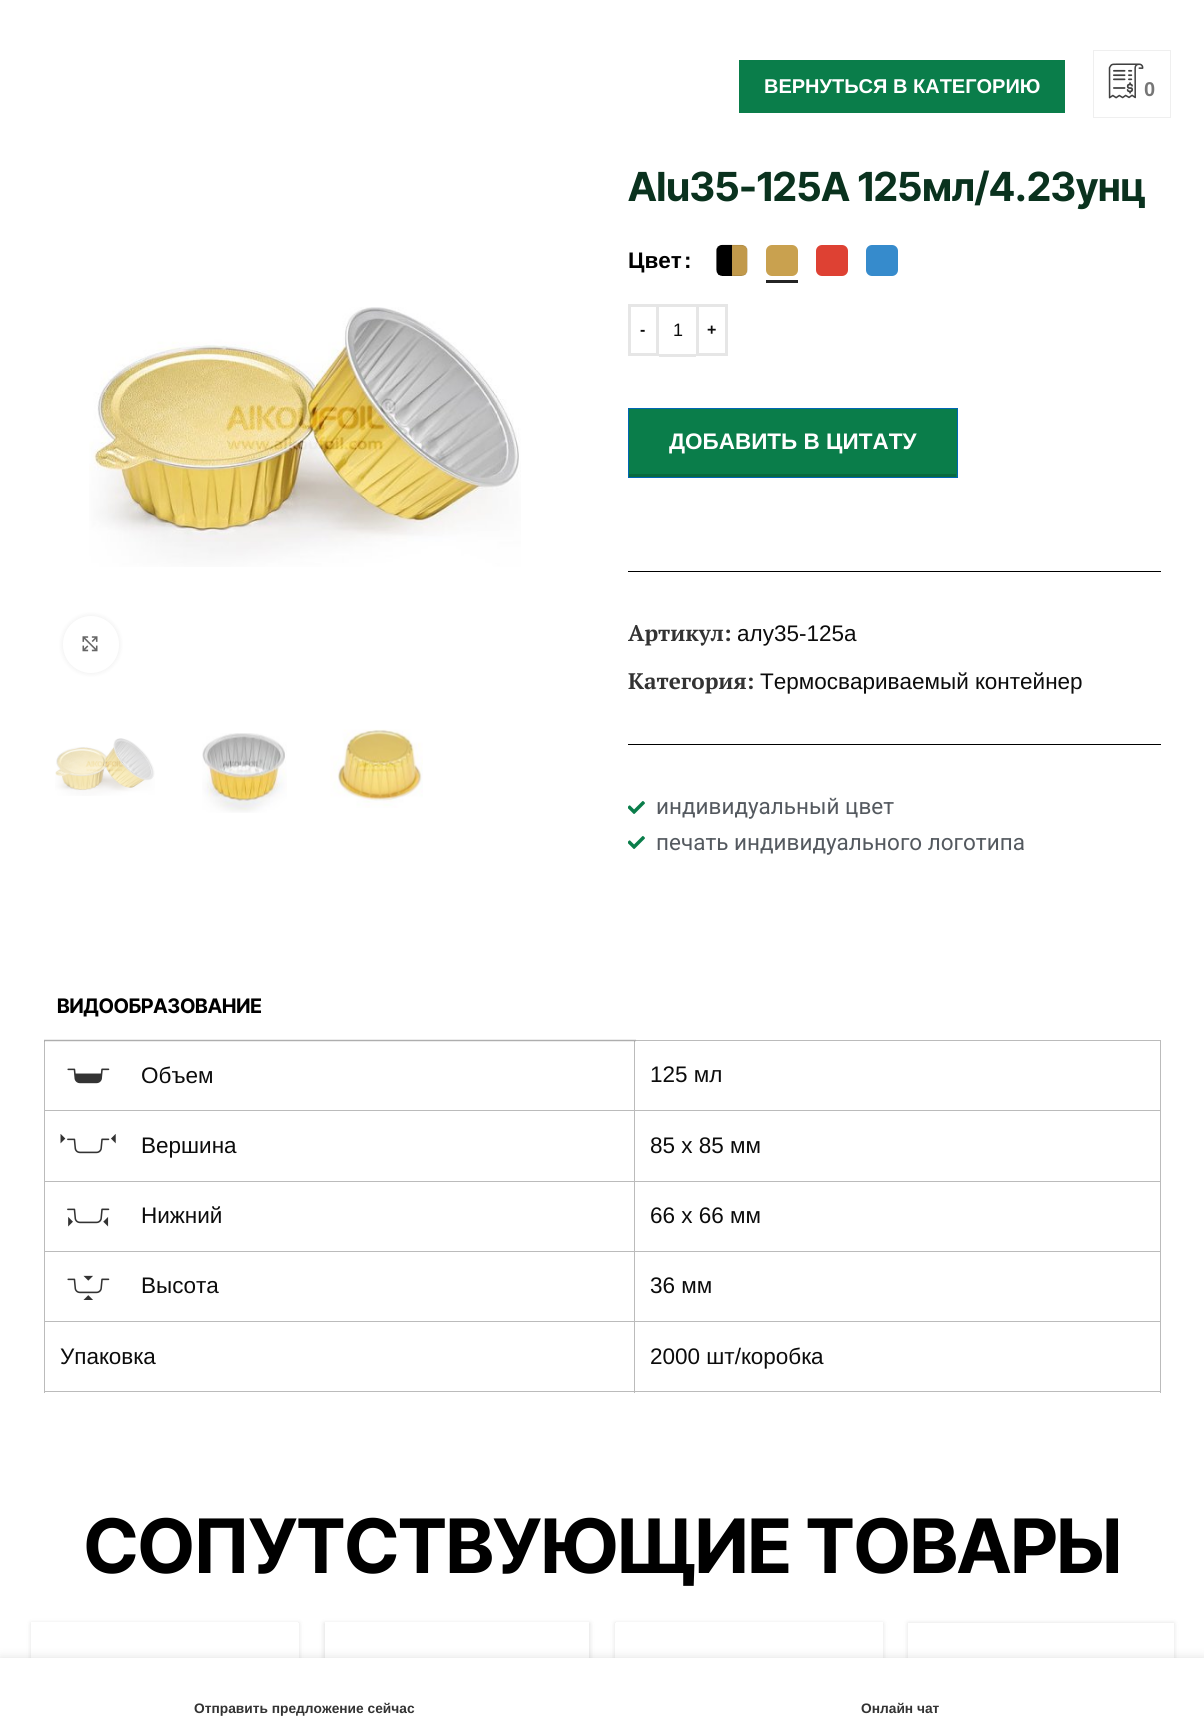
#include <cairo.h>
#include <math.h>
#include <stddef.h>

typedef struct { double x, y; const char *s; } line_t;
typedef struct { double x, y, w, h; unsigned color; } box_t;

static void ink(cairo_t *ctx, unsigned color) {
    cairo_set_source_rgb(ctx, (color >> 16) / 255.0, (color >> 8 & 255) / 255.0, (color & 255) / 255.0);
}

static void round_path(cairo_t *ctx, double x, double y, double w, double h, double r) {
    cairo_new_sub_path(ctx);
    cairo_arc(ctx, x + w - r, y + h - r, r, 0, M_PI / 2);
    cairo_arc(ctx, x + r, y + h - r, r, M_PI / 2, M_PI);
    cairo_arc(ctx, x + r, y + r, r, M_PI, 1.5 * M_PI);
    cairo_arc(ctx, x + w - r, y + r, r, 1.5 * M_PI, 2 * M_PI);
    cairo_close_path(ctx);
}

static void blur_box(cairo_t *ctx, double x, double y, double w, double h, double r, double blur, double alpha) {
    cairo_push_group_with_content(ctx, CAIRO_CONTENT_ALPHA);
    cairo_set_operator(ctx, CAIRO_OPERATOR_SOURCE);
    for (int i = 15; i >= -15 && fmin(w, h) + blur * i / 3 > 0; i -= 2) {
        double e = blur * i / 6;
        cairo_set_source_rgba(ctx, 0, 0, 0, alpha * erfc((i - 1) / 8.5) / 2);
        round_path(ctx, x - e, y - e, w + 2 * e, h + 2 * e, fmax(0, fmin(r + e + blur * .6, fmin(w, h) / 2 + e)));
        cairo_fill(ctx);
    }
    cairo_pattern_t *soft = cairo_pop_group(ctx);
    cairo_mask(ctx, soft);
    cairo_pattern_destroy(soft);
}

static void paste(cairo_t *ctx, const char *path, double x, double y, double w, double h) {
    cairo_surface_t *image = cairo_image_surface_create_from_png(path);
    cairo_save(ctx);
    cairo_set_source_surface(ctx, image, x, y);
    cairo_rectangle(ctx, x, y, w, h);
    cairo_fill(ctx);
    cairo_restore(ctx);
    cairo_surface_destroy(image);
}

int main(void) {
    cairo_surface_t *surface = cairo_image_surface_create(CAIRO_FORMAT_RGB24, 1204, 1726);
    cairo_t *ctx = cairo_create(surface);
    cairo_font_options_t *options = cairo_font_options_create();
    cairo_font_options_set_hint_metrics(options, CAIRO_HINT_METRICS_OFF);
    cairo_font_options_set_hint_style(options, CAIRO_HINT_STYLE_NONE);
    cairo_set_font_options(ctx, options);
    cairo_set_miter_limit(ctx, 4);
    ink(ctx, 0xFFFFFF);
    cairo_paint(ctx);
    ink(ctx, 0xEDEDED);
    cairo_rectangle(ctx, 44, 1039, 592, 3);
    cairo_fill(ctx);
    ink(ctx, 0x0A7D4A);
    cairo_rectangle(ctx, 739, 60, 326, 53);
    cairo_fill(ctx);
    cairo_select_font_face(ctx, "Liberation Sans", CAIRO_FONT_SLANT_NORMAL, CAIRO_FONT_WEIGHT_BOLD);
    cairo_set_font_size(ctx, 20);
    ink(ctx, 0xFFFFFF);
    cairo_move_to(ctx, 764, 93);
    cairo_show_text(ctx, "ВЕРНУТЬСЯ В КАТЕГОРИЮ");
    cairo_rectangle(ctx, 1093.5, 50.5, 77, 67);
    ink(ctx, 0xEFEFEF);
    cairo_set_line_width(ctx, 1);
    cairo_stroke(ctx);
    paste(ctx, "media/1.png", 1108, 63, 36, 36);
    ink(ctx, 0x767676);
    cairo_move_to(ctx, 1144, 96);
    cairo_show_text(ctx, "0");
    paste(ctx, "media/2.png", 89, 307, 432, 260);
    ink(ctx, 0x000000);
    blur_box(ctx, 63, 616, 56, 57, 28, 3, 0.08);
    ink(ctx, 0xFFFFFF);
    round_path(ctx, 63, 616, 56, 57, 28);
    cairo_fill(ctx);
    paste(ctx, "media/3.png", 82, 636, 16, 16);
    paste(ctx, "media/4.png", 55, 738, 100, 58);
    paste(ctx, "media/5.png", 202, 733, 85, 80);
    paste(ctx, "media/6.png", 330, 729, 93, 79);
    cairo_select_font_face(ctx, "Inter Tight", CAIRO_FONT_SLANT_NORMAL, CAIRO_FONT_WEIGHT_BOLD);
    cairo_set_font_size(ctx, 40);
    ink(ctx, 0x0A321E);
    cairo_move_to(ctx, 628, 201);
    cairo_show_text(ctx, "Alu35-125A 125мл/4.23унц");
    cairo_select_font_face(ctx, "Liberation Sans", CAIRO_FONT_SLANT_NORMAL, CAIRO_FONT_WEIGHT_BOLD);
    cairo_set_font_size(ctx, 22.5);
    ink(ctx, 0x000000);
    cairo_move_to(ctx, 628, 268);
    cairo_show_text(ctx, "Цвет");
    cairo_move_to(ctx, 684, 268);
    cairo_show_text(ctx, ":");
    paste(ctx, "media/7.png", 716, 244, 32, 32);
    round_path(ctx, 716.5, 245.5, 31, 30, 5.5);
    cairo_set_source_rgba(ctx, 0, 0, 0, 0.07);
    cairo_stroke(ctx);
    ink(ctx, 0xC9A14F);
    round_path(ctx, 766, 245, 32, 31, 6);
    cairo_fill(ctx);
    ink(ctx, 0x242424);
    cairo_rectangle(ctx, 766, 280, 32, 3);
    cairo_fill(ctx);
    ink(ctx, 0xDE4133);
    round_path(ctx, 816, 245, 32, 31, 6);
    cairo_fill(ctx);
    ink(ctx, 0x368BCC);
    round_path(ctx, 866, 245, 32, 31, 6);
    cairo_fill(ctx);
    cairo_rectangle(ctx, 629.5, 305.5, 28, 49);
    ink(ctx, 0xE6E6E6);
    cairo_set_line_width(ctx, 3);
    cairo_stroke(ctx);
    cairo_set_font_size(ctx, 16);
    ink(ctx, 0x0C0C0C);
    cairo_move_to(ctx, 640, 335);
    cairo_show_text(ctx, "-");
    ink(ctx, 0xE6E6E6);
    cairo_rectangle(ctx, 659, 304, 37, 3);
    cairo_fill(ctx);
    cairo_rectangle(ctx, 659, 354, 37, 3);
    cairo_fill(ctx);
    cairo_select_font_face(ctx, "Liberation Sans", CAIRO_FONT_SLANT_NORMAL, CAIRO_FONT_WEIGHT_NORMAL);
    cairo_set_font_size(ctx, 18);
    ink(ctx, 0x0C0C0C);
    cairo_move_to(ctx, 673, 336);
    cairo_show_text(ctx, "1");
    cairo_rectangle(ctx, 697.5, 305.5, 29, 49);
    ink(ctx, 0xE6E6E6);
    cairo_stroke(ctx);
    cairo_select_font_face(ctx, "Liberation Sans", CAIRO_FONT_SLANT_NORMAL, CAIRO_FONT_WEIGHT_BOLD);
    cairo_set_font_size(ctx, 16);
    ink(ctx, 0x0C0C0C);
    cairo_move_to(ctx, 707, 335);
    cairo_show_text(ctx, "+");
    ink(ctx, 0x0A7D4A);
    cairo_rectangle(ctx, 629, 409, 328, 68);
    cairo_fill(ctx);
    ink(ctx, 0x096A3F);
    cairo_rectangle(ctx, 629, 474, 327, 3);
    cairo_fill(ctx);
    cairo_rectangle(ctx, 628.5, 408.5, 329, 69);
    ink(ctx, 0x0066B4);
    cairo_set_line_width(ctx, 1);
    cairo_stroke(ctx);
    cairo_set_font_size(ctx, 22.5);
    ink(ctx, 0xFFFFFF);
    cairo_move_to(ctx, 669, 449);
    cairo_show_text(ctx, "ДОБАВИТЬ В ЦИТАТУ");
    ink(ctx, 0x000000);
    cairo_rectangle(ctx, 628, 571, 533, 1);
    cairo_fill(ctx);
    cairo_select_font_face(ctx, "PT Serif", CAIRO_FONT_SLANT_NORMAL, CAIRO_FONT_WEIGHT_BOLD);
    ink(ctx, 0x333333);
    cairo_move_to(ctx, 628, 641);
    cairo_show_text(ctx, "Артикул:");
    cairo_select_font_face(ctx, "Liberation Sans", CAIRO_FONT_SLANT_NORMAL, CAIRO_FONT_WEIGHT_NORMAL);
    ink(ctx, 0x0C0C0C);
    cairo_move_to(ctx, 737, 641);
    cairo_show_text(ctx, "алу35-125а");
    cairo_select_font_face(ctx, "PT Serif", CAIRO_FONT_SLANT_NORMAL, CAIRO_FONT_WEIGHT_BOLD);
    ink(ctx, 0x333333);
    cairo_move_to(ctx, 628, 689);
    cairo_show_text(ctx, "Категория:");
    cairo_select_font_face(ctx, "Liberation Sans", CAIRO_FONT_SLANT_NORMAL, CAIRO_FONT_WEIGHT_NORMAL);
    ink(ctx, 0x0C0C0C);
    cairo_move_to(ctx, 760, 689);
    cairo_show_text(ctx, "Термосвариваемый контейнер");
    ink(ctx, 0x000000);
    cairo_rectangle(ctx, 628, 744, 533, 1);
    cairo_fill(ctx);
    paste(ctx, "media/8.png", 628, 801, 17, 13);
    cairo_select_font_face(ctx, "Roboto", CAIRO_FONT_SLANT_NORMAL, CAIRO_FONT_WEIGHT_NORMAL);
    ink(ctx, 0x54595F);
    cairo_move_to(ctx, 656, 814);
    cairo_show_text(ctx, "индивидуальный цвет");
    paste(ctx, "media/8.png", 628, 836, 17, 13);
    cairo_move_to(ctx, 656, 850);
    cairo_show_text(ctx, "печать индивидуального логотипа");
    cairo_select_font_face(ctx, "Inter Tight", CAIRO_FONT_SLANT_NORMAL, CAIRO_FONT_WEIGHT_BOLD);
    cairo_set_font_size(ctx, 20);
    ink(ctx, 0x000000);
    cairo_move_to(ctx, 57, 1013);
    cairo_show_text(ctx, "ВИДООБРАЗОВАНИЕ");
    {
        static const box_t items[] = {
            {634, 1040, 527, 1, 0xBBBBBB},
            {634, 1040, 2, 1, 0xAEAEAE},
            {634, 1110, 527, 1, 0xBBBBBB},
            {634, 1181, 527, 1, 0xBBBBBB},
            {634, 1251, 527, 1, 0xBBBBBB},
            {634, 1321, 527, 1, 0xBBBBBB},
            {1160, 1321, 1, 72, 0xBBBBBB},
            {634, 1391, 527, 1, 0xBBBBBB},
            {634, 1321, 1, 72, 0xBBBBBB},
            {44, 1321, 591, 1, 0xBBBBBB},
            {634, 1251, 1, 72, 0xBBBBBB},
            {44, 1251, 591, 1, 0xBBBBBB},
            {634, 1181, 1, 72, 0xBBBBBB},
            {44, 1181, 591, 1, 0xBBBBBB},
            {634, 1110, 1, 73, 0xBBBBBB},
            {44, 1110, 591, 1, 0xBBBBBB},
            {634, 1040, 1, 71, 0xBBBBBB},
            {634, 1040, 1, 2, 0xAEAEAE},
            {44, 1040, 591, 1, 0xAEAEAE},
            {44, 1391, 591, 1, 0xBBBBBB},
            {44, 1321, 1, 72, 0xBBBBBB},
            {44, 1251, 1, 72, 0xBBBBBB},
            {44, 1181, 1, 72, 0xBBBBBB},
            {44, 1110, 1, 73, 0xBBBBBB},
            {44, 1040, 1, 71, 0xBBBBBB},
            {44, 1040, 1, 2, 0xAEAEAE},
        };
        for (size_t i = 0; i < sizeof items / sizeof *items; i++) {
            ink(ctx, items[i].color);
            cairo_rectangle(ctx, items[i].x, items[i].y, items[i].w, items[i].h);
            cairo_fill(ctx);
        }
    }
    paste(ctx, "media/9.png", 67, 1068, 43, 16);
    cairo_select_font_face(ctx, "Liberation Sans", CAIRO_FONT_SLANT_NORMAL, CAIRO_FONT_WEIGHT_NORMAL);
    cairo_set_font_size(ctx, 22.5);
    ink(ctx, 0x0C0C0C);
    cairo_move_to(ctx, 141, 1083);
    cairo_show_text(ctx, "Объем");
    {
        static const box_t items[] = {
            {1160, 1251, 1, 72, 0xBBBBBB},
            {1160, 1181, 1, 72, 0xBBBBBB},
            {1160, 1110, 1, 73, 0xBBBBBB},
            {1160, 1040, 1, 71, 0xBBBBBB},
        };
        for (size_t i = 0; i < sizeof items / sizeof *items; i++) {
            ink(ctx, items[i].color);
            cairo_rectangle(ctx, items[i].x, items[i].y, items[i].w, items[i].h);
            cairo_fill(ctx);
        }
    }
    ink(ctx, 0x0C0C0C);
    cairo_move_to(ctx, 650, 1082);
    cairo_show_text(ctx, "125 мл");
    paste(ctx, "media/10.png", 60, 1134, 56, 20);
    cairo_move_to(ctx, 141, 1153);
    cairo_show_text(ctx, "Вершина");
    cairo_move_to(ctx, 650, 1153);
    cairo_show_text(ctx, "85 х 85 мм");
    paste(ctx, "media/11.png", 67, 1208, 43, 19);
    cairo_move_to(ctx, 141, 1223);
    cairo_show_text(ctx, "Нижний");
    cairo_move_to(ctx, 650, 1223);
    cairo_show_text(ctx, "66 х 66 мм");
    paste(ctx, "media/12.png", 67, 1275, 43, 25);
    {
        static const line_t items[] = {
            {141, 1293, "Высота"},
            {650, 1293, "36 мм"},
            {60, 1364, "Упаковка"},
            {650, 1364, "2000 шт/коробка"},
        };
        for (size_t i = 0; i < sizeof items / sizeof *items; i++) {
            cairo_move_to(ctx, items[i].x, items[i].y);
            cairo_show_text(ctx, items[i].s);
        }
    }
    cairo_select_font_face(ctx, "Inter Tight", CAIRO_FONT_SLANT_NORMAL, CAIRO_FONT_WEIGHT_BOLD);
    cairo_set_font_size(ctx, 75);
    ink(ctx, 0x000000);
    cairo_move_to(ctx, 84, 1573);
    cairo_show_text(ctx, "СОПУТСТВУЮЩИЕ ТОВАРЫ");
    ink(ctx, 0x000000);
    blur_box(ctx, 31, 1623, 268, 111, 0, 2.5, 0.12);
    ink(ctx, 0xFFFFFF);
    cairo_rectangle(ctx, 298, 1623, 1, 35);
    cairo_fill(ctx);
    paste(ctx, "media/13.png", 31, 1622, 267, 36);
    ink(ctx, 0x000000);
    blur_box(ctx, 324, 1623, 266, 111, 0, 2.5, 0.12);
    paste(ctx, "media/14.png", 325, 1622, 264, 36);
    blur_box(ctx, 615, 1623, 268, 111, 0, 2.5, 0.12);
    ink(ctx, 0xFFFFFF);
    cairo_rectangle(ctx, 615, 1623, 1, 35);
    cairo_fill(ctx);
    paste(ctx, "media/13.png", 616, 1622, 267, 36);
    ink(ctx, 0x000000);
    blur_box(ctx, 908, 1623, 266, 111, 0, 2.5, 0.12);
    ink(ctx, 0xFFFFFF);
    cairo_rectangle(ctx, 908, 1623, 266, 35);
    cairo_fill(ctx);
    ink(ctx, 0x000000);
    blur_box(ctx, 0, 1658, 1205, 68, 0, 5.5, 0.12);
    ink(ctx, 0xFFFFFF);
    cairo_rectangle(ctx, 0, 1658, 1204, 68);
    cairo_fill(ctx);
    cairo_select_font_face(ctx, "Liberation Sans", CAIRO_FONT_SLANT_NORMAL, CAIRO_FONT_WEIGHT_BOLD);
    cairo_set_font_size(ctx, 13.75);
    ink(ctx, 0x333333);
    cairo_move_to(ctx, 194, 1713);
    cairo_show_text(ctx, "Отправить предложение сейчас");
    cairo_move_to(ctx, 861, 1713);
    cairo_show_text(ctx, "Онлайн чат");
    cairo_surface_write_to_png(surface, "image.png");
    cairo_font_options_destroy(options);
    cairo_destroy(ctx);
    cairo_surface_destroy(surface);
    return 0;
}
